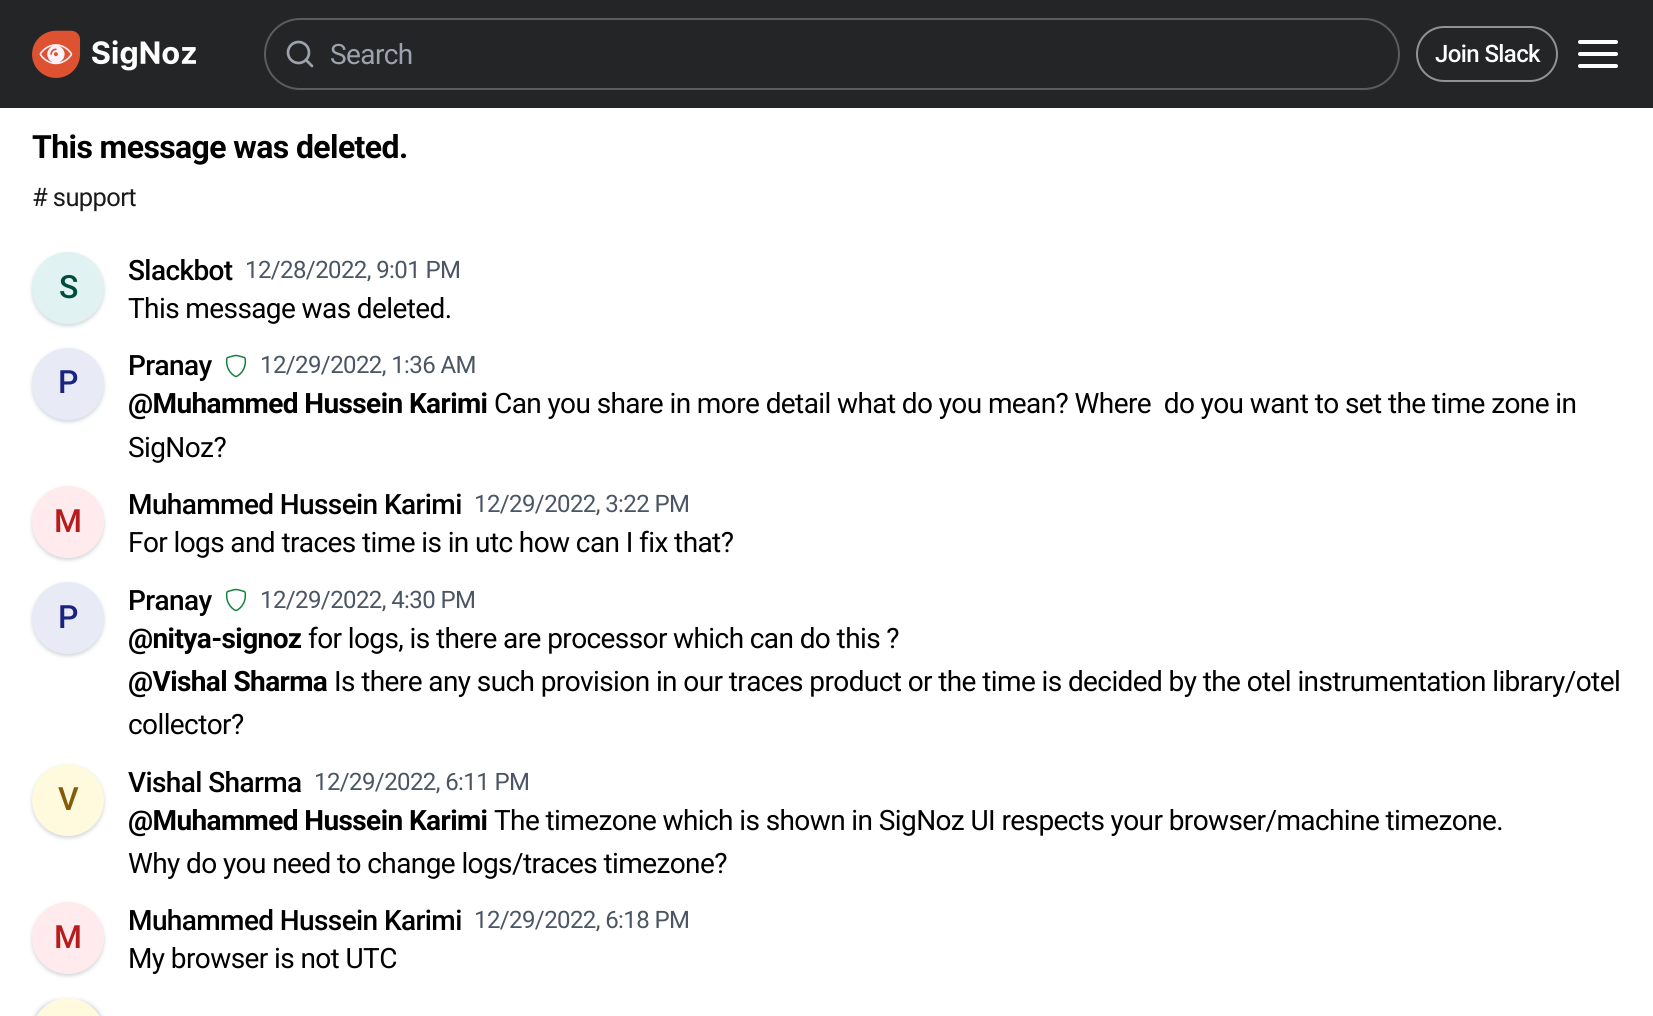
#include <cairo.h>
#include <math.h>
#include <stddef.h>


static void ink(cairo_t *ctx, unsigned color) {
    cairo_set_source_rgb(ctx, (color >> 16) / 255.0, (color >> 8 & 255) / 255.0, (color & 255) / 255.0);
}

static void write_spaced(cairo_t *ctx, double x, double y, const char *s, double letter, double word) {
    cairo_move_to(ctx, x, y);
    while (*s) {
        char ch[5] = {0};
        int n = 0;
        do ch[n++] = *s++; while ((*s & 0xC0) == 0x80);
        cairo_show_text(ctx, ch);
        cairo_rel_move_to(ctx, letter + word * (*ch == ' '), 0);
    }
}

static void round_path(cairo_t *ctx, double x, double y, double w, double h, double r) {
    cairo_new_sub_path(ctx);
    cairo_arc(ctx, x + w - r, y + h - r, r, 0, M_PI / 2);
    cairo_arc(ctx, x + r, y + h - r, r, M_PI / 2, M_PI);
    cairo_arc(ctx, x + r, y + r, r, M_PI, 1.5 * M_PI);
    cairo_arc(ctx, x + w - r, y + r, r, 1.5 * M_PI, 2 * M_PI);
    cairo_close_path(ctx);
}

static void blur_box(cairo_t *ctx, double x, double y, double w, double h, double r, double blur, double alpha) {
    cairo_push_group_with_content(ctx, CAIRO_CONTENT_ALPHA);
    cairo_set_operator(ctx, CAIRO_OPERATOR_SOURCE);
    for (int i = 15; i >= -15 && fmin(w, h) + blur * i / 3 > 0; i -= 2) {
        double e = blur * i / 6;
        cairo_set_source_rgba(ctx, 0, 0, 0, alpha * erfc((i - 1) / 8.5) / 2);
        round_path(ctx, x - e, y - e, w + 2 * e, h + 2 * e, fmax(0, fmin(r + e + blur * .6, fmin(w, h) / 2 + e)));
        cairo_fill(ctx);
    }
    cairo_pattern_t *soft = cairo_pop_group(ctx);
    cairo_mask(ctx, soft);
    cairo_pattern_destroy(soft);
}

static void paste(cairo_t *ctx, const char *path, double x, double y, double w, double h) {
    cairo_surface_t *image = cairo_image_surface_create_from_png(path);
    cairo_save(ctx);
    cairo_set_source_surface(ctx, image, x, y);
    cairo_rectangle(ctx, x, y, w, h);
    cairo_fill(ctx);
    cairo_restore(ctx);
    cairo_surface_destroy(image);
}

int main(void) {
    cairo_surface_t *surface = cairo_image_surface_create(CAIRO_FORMAT_RGB24, 1653, 1016);
    cairo_t *ctx = cairo_create(surface);
    cairo_font_options_t *options = cairo_font_options_create();
    cairo_font_options_set_hint_metrics(options, CAIRO_HINT_METRICS_OFF);
    cairo_font_options_set_hint_style(options, CAIRO_HINT_STYLE_NONE);
    cairo_set_font_options(ctx, options);
    cairo_set_miter_limit(ctx, 4);
    ink(ctx, 0xFFFFFF);
    cairo_paint(ctx);
    ink(ctx, 0x242526);
    cairo_rectangle(ctx, 0, 0, 1653, 108);
    cairo_fill(ctx);
    paste(ctx, "media/1.png", 32, 30, 164, 48);
    round_path(ctx, 265, 19, 1134, 70, 35);
    ink(ctx, 0x5B5C5C);
    cairo_stroke(ctx);
    cairo_arc(ctx, 298.5, 52.5, 10.5, 0, 2 * M_PI);
    ink(ctx, 0x9CA3AF);
    cairo_set_line_width(ctx, 2.7);
    cairo_stroke(ctx);
    cairo_new_path(ctx);
    cairo_move_to(ctx, 312, 66);
    cairo_line_to(ctx, 306, 60);
    cairo_set_line_cap(ctx, CAIRO_LINE_CAP_ROUND);
    cairo_set_line_join(ctx, CAIRO_LINE_JOIN_ROUND);
    cairo_stroke(ctx);
    cairo_select_font_face(ctx, "Roboto", CAIRO_FONT_SLANT_NORMAL, CAIRO_FONT_WEIGHT_NORMAL);
    cairo_set_font_size(ctx, 28);
    write_spaced(ctx, 330, 64, "Search", -0.6, 0);
    round_path(ctx, 1417, 27, 140, 54, 27);
    ink(ctx, 0x929293);
    cairo_set_line_width(ctx, 2);
    cairo_set_line_cap(ctx, CAIRO_LINE_CAP_BUTT);
    cairo_set_line_join(ctx, CAIRO_LINE_JOIN_MITER);
    cairo_stroke(ctx);
    cairo_select_font_face(ctx, "Roboto Medium", CAIRO_FONT_SLANT_NORMAL, CAIRO_FONT_WEIGHT_NORMAL);
    cairo_set_font_size(ctx, 24);
    ink(ctx, 0xFFFFFF);
    write_spaced(ctx, 1435, 62, "Join Slack", -0.6, 0);
    cairo_new_path(ctx);
    cairo_move_to(ctx, 1580, 54);
    cairo_line_to(ctx, 1616, 54);
    cairo_move_to(ctx, 1580, 42);
    cairo_line_to(ctx, 1616, 42);
    cairo_move_to(ctx, 1580, 66);
    cairo_line_to(ctx, 1616, 66);
    cairo_set_line_width(ctx, 4);
    cairo_set_line_cap(ctx, CAIRO_LINE_CAP_ROUND);
    cairo_set_line_join(ctx, CAIRO_LINE_JOIN_ROUND);
    cairo_stroke(ctx);
    cairo_select_font_face(ctx, "Roboto", CAIRO_FONT_SLANT_NORMAL, CAIRO_FONT_WEIGHT_BOLD);
    cairo_set_font_size(ctx, 32);
    ink(ctx, 0x000000);
    write_spaced(ctx, 32, 158, "This message was deleted.", -0.6, 0);
    cairo_select_font_face(ctx, "Roboto", CAIRO_FONT_SLANT_NORMAL, CAIRO_FONT_WEIGHT_NORMAL);
    cairo_set_font_size(ctx, 25.5);
    ink(ctx, 0x1A1A1A);
    write_spaced(ctx, 32, 206, "# support", -0.6, 0);
    ink(ctx, 0xD1D5DB);
    blur_box(ctx, 32, 254, 72, 72, 36, 2, 1);
    ink(ctx, 0xE0F2F1);
    cairo_arc(ctx, 68, 288, 36, 0, 2 * M_PI);
    cairo_fill(ctx);
    cairo_select_font_face(ctx, "Roboto Medium", CAIRO_FONT_SLANT_NORMAL, CAIRO_FONT_WEIGHT_NORMAL);
    cairo_set_font_size(ctx, 32);
    ink(ctx, 0x004D40);
    write_spaced(ctx, 59, 298, "S", -0.6, 0);
    cairo_set_font_size(ctx, 28);
    ink(ctx, 0x000000);
    write_spaced(ctx, 128, 280, "Slackbot", -0.6, 0);
    cairo_select_font_face(ctx, "Roboto", CAIRO_FONT_SLANT_NORMAL, CAIRO_FONT_WEIGHT_NORMAL);
    cairo_set_font_size(ctx, 24);
    ink(ctx, 0x4B5563);
    write_spaced(ctx, 245, 278, "12/28/2022, 9:01 PM", -0.6, 0);
    cairo_set_font_size(ctx, 28);
    ink(ctx, 0x000000);
    write_spaced(ctx, 128, 318, "This message was deleted.", -0.6, 0);
    ink(ctx, 0xD1D5DB);
    blur_box(ctx, 32, 350, 72, 72, 36, 2, 1);
    ink(ctx, 0xE8EAF6);
    cairo_arc(ctx, 68, 384, 36, 0, 2 * M_PI);
    cairo_fill(ctx);
    cairo_select_font_face(ctx, "Roboto Medium", CAIRO_FONT_SLANT_NORMAL, CAIRO_FONT_WEIGHT_NORMAL);
    cairo_set_font_size(ctx, 32);
    ink(ctx, 0x1A237E);
    write_spaced(ctx, 58, 393, "P", -0.6, 0);
    cairo_set_font_size(ctx, 28);
    ink(ctx, 0x000000);
    write_spaced(ctx, 128, 375, "Pranay", -0.6, 0);
    paste(ctx, "media/2.png", 225, 354, 22, 24);
    cairo_select_font_face(ctx, "Roboto", CAIRO_FONT_SLANT_NORMAL, CAIRO_FONT_WEIGHT_NORMAL);
    cairo_set_font_size(ctx, 24);
    ink(ctx, 0x4B5563);
    write_spaced(ctx, 260, 373, "12/29/2022, 1:36 AM", -0.6, 0);
    cairo_select_font_face(ctx, "Roboto", CAIRO_FONT_SLANT_NORMAL, CAIRO_FONT_WEIGHT_BOLD);
    cairo_set_font_size(ctx, 28);
    ink(ctx, 0x000000);
    write_spaced(ctx, 128, 413, "@Muhammed Hussein Karimi", -0.6, 0);
    cairo_select_font_face(ctx, "Roboto", CAIRO_FONT_SLANT_NORMAL, CAIRO_FONT_WEIGHT_NORMAL);
    write_spaced(ctx, 494, 413, "Can you share in more detail what do you mean? Where  do you want to set the time zone in", -0.6, 0);
    write_spaced(ctx, 128, 457, "SigNoz?", -0.6, 0);
    ink(ctx, 0xD1D5DB);
    blur_box(ctx, 32, 488, 72, 72, 36, 2, 1);
    ink(ctx, 0xFFEBEE);
    cairo_arc(ctx, 68, 522, 36, 0, 2 * M_PI);
    cairo_fill(ctx);
    cairo_select_font_face(ctx, "Roboto Medium", CAIRO_FONT_SLANT_NORMAL, CAIRO_FONT_WEIGHT_NORMAL);
    cairo_set_font_size(ctx, 32);
    ink(ctx, 0xB71C1C);
    write_spaced(ctx, 54, 532, "M", -0.6, 0);
    cairo_set_font_size(ctx, 28);
    ink(ctx, 0x000000);
    write_spaced(ctx, 128, 514, "Muhammed Hussein Karimi", -0.6, 0);
    cairo_select_font_face(ctx, "Roboto", CAIRO_FONT_SLANT_NORMAL, CAIRO_FONT_WEIGHT_NORMAL);
    cairo_set_font_size(ctx, 24);
    ink(ctx, 0x4B5563);
    write_spaced(ctx, 474, 512, "12/29/2022, 3:22 PM", -0.6, 0);
    cairo_set_font_size(ctx, 28);
    ink(ctx, 0x000000);
    write_spaced(ctx, 128, 552, "For logs and traces time is in utc how can I fix that?", -0.6, 0);
    ink(ctx, 0xD1D5DB);
    blur_box(ctx, 32, 584, 72, 72, 36, 2, 1);
    ink(ctx, 0xE8EAF6);
    cairo_arc(ctx, 68, 618, 36, 0, 2 * M_PI);
    cairo_fill(ctx);
    cairo_select_font_face(ctx, "Roboto Medium", CAIRO_FONT_SLANT_NORMAL, CAIRO_FONT_WEIGHT_NORMAL);
    cairo_set_font_size(ctx, 32);
    ink(ctx, 0x1A237E);
    write_spaced(ctx, 58, 628, "P", -0.6, 0);
    cairo_set_font_size(ctx, 28);
    ink(ctx, 0x000000);
    write_spaced(ctx, 128, 610, "Pranay", -0.6, 0);
    paste(ctx, "media/2.png", 225, 588, 22, 24);
    cairo_select_font_face(ctx, "Roboto", CAIRO_FONT_SLANT_NORMAL, CAIRO_FONT_WEIGHT_NORMAL);
    cairo_set_font_size(ctx, 24);
    ink(ctx, 0x4B5563);
    write_spaced(ctx, 260, 608, "12/29/2022, 4:30 PM", -0.6, 0);
    cairo_select_font_face(ctx, "Roboto", CAIRO_FONT_SLANT_NORMAL, CAIRO_FONT_WEIGHT_BOLD);
    cairo_set_font_size(ctx, 28);
    ink(ctx, 0x000000);
    write_spaced(ctx, 128, 648, "@nitya-signoz", -0.6, 0);
    cairo_select_font_face(ctx, "Roboto", CAIRO_FONT_SLANT_NORMAL, CAIRO_FONT_WEIGHT_NORMAL);
    write_spaced(ctx, 308, 648, "for logs, is there are processor which can do this ?", -0.6, 0);
    cairo_select_font_face(ctx, "Roboto", CAIRO_FONT_SLANT_NORMAL, CAIRO_FONT_WEIGHT_BOLD);
    write_spaced(ctx, 128, 691, "@Vishal Sharma", -0.6, 0);
    cairo_select_font_face(ctx, "Roboto", CAIRO_FONT_SLANT_NORMAL, CAIRO_FONT_WEIGHT_NORMAL);
    write_spaced(ctx, 334, 691, "Is there any such provision in our traces product or the time is decided by the otel instrumentation library/otel", -0.6, 0);
    write_spaced(ctx, 128, 734, "collector?", -0.6, 0);
    ink(ctx, 0xD1D5DB);
    blur_box(ctx, 32, 766, 72, 72, 36, 2, 1);
    ink(ctx, 0xFFF9DE);
    cairo_arc(ctx, 68, 800, 36, 0, 2 * M_PI);
    cairo_fill(ctx);
    cairo_select_font_face(ctx, "Roboto Medium", CAIRO_FONT_SLANT_NORMAL, CAIRO_FONT_WEIGHT_NORMAL);
    cairo_set_font_size(ctx, 32);
    ink(ctx, 0x845C07);
    write_spaced(ctx, 58, 810, "V", -0.6, 0);
    cairo_set_font_size(ctx, 28);
    ink(ctx, 0x000000);
    write_spaced(ctx, 128, 792, "Vishal Sharma", -0.6, 0);
    cairo_select_font_face(ctx, "Roboto", CAIRO_FONT_SLANT_NORMAL, CAIRO_FONT_WEIGHT_NORMAL);
    cairo_set_font_size(ctx, 24);
    ink(ctx, 0x4B5563);
    write_spaced(ctx, 314, 790, "12/29/2022, 6:11 PM", -0.6, 0);
    cairo_select_font_face(ctx, "Roboto", CAIRO_FONT_SLANT_NORMAL, CAIRO_FONT_WEIGHT_BOLD);
    cairo_set_font_size(ctx, 28);
    ink(ctx, 0x000000);
    write_spaced(ctx, 128, 830, "@Muhammed Hussein Karimi", -0.6, 0);
    cairo_select_font_face(ctx, "Roboto", CAIRO_FONT_SLANT_NORMAL, CAIRO_FONT_WEIGHT_NORMAL);
    write_spaced(ctx, 494, 830, "The timezone which is shown in SigNoz UI respects your browser/machine timezone.", -0.6, 0);
    write_spaced(ctx, 128, 873, "Why do you need to change logs/traces timezone?", -0.6, 0);
    ink(ctx, 0xD1D5DB);
    blur_box(ctx, 32, 904, 72, 72, 36, 2, 1);
    ink(ctx, 0xFFEBEE);
    cairo_arc(ctx, 68, 938, 36, 0, 2 * M_PI);
    cairo_fill(ctx);
    cairo_select_font_face(ctx, "Roboto Medium", CAIRO_FONT_SLANT_NORMAL, CAIRO_FONT_WEIGHT_NORMAL);
    cairo_set_font_size(ctx, 32);
    ink(ctx, 0xB71C1C);
    write_spaced(ctx, 54, 948, "M", -0.6, 0);
    cairo_set_font_size(ctx, 28);
    ink(ctx, 0x000000);
    write_spaced(ctx, 128, 930, "Muhammed Hussein Karimi", -0.6, 0);
    cairo_select_font_face(ctx, "Roboto", CAIRO_FONT_SLANT_NORMAL, CAIRO_FONT_WEIGHT_NORMAL);
    cairo_set_font_size(ctx, 24);
    ink(ctx, 0x4B5563);
    write_spaced(ctx, 474, 928, "12/29/2022, 6:18 PM", -0.6, 0);
    cairo_set_font_size(ctx, 28);
    ink(ctx, 0x000000);
    write_spaced(ctx, 128, 968, "My browser is not UTC", -0.6, 0);
    ink(ctx, 0xD1D5DB);
    blur_box(ctx, 32, 1000, 72, 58, 36, 2, 1);
    ink(ctx, 0xFFF9DE);
    cairo_new_path(ctx);
    cairo_move_to(ctx, 68, 998);
    cairo_curve_to(ctx, 88, 998, 104, 1014, 104, 1034);
    cairo_line_to(ctx, 104, 1016);
    cairo_line_to(ctx, 32, 1016);
    cairo_line_to(ctx, 32, 1034);
    cairo_curve_to(ctx, 32, 1014, 48, 998, 68, 998);
    cairo_close_path(ctx);
    cairo_fill(ctx);
    cairo_surface_write_to_png(surface, "image.png");
    cairo_font_options_destroy(options);
    cairo_destroy(ctx);
    cairo_surface_destroy(surface);
    return 0;
}
